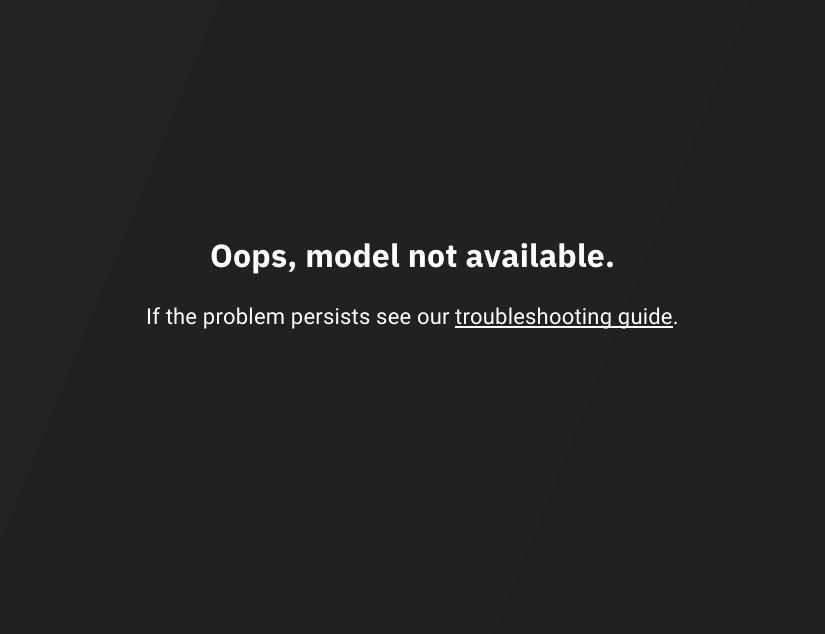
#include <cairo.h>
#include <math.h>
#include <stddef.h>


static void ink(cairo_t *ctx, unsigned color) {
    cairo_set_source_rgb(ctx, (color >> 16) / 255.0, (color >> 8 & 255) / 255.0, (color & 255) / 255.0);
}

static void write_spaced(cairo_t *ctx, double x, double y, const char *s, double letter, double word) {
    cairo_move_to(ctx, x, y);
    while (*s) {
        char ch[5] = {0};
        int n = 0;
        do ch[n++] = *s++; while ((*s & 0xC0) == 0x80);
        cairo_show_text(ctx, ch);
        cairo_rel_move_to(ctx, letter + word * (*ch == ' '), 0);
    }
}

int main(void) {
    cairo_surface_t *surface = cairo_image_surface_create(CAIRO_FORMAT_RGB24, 825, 634);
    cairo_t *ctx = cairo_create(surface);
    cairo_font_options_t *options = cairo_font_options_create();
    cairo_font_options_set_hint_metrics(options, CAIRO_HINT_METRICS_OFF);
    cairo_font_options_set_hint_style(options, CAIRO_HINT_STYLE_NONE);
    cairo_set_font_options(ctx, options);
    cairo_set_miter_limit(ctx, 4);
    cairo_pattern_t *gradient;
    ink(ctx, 0xFFFFFF);
    cairo_paint(ctx);
    gradient = cairo_pattern_create_linear(-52, 129, 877, 505);
    cairo_pattern_add_color_stop_rgba(gradient, 0, 0.133, 0.133, 0.133, 1);
    cairo_pattern_add_color_stop_rgba(gradient, 1, 0.125, 0.125, 0.125, 1);
    cairo_set_source(ctx, gradient);
    cairo_pattern_destroy(gradient);
    cairo_rectangle(ctx, 0, 0, 825, 634);
    cairo_fill(ctx);
    cairo_select_font_face(ctx, "IBM Plex Sans", CAIRO_FONT_SLANT_NORMAL, CAIRO_FONT_WEIGHT_BOLD);
    cairo_set_font_size(ctx, 32);
    ink(ctx, 0xFFFFFF);
    write_spaced(ctx, 210, 267, "Oops, model not available.", 0.2, 0);
    cairo_select_font_face(ctx, "Roboto", CAIRO_FONT_SLANT_NORMAL, CAIRO_FONT_WEIGHT_NORMAL);
    cairo_set_font_size(ctx, 22);
    write_spaced(ctx, 146, 324, "If the problem persists see our", 0.2, 0);
    cairo_rectangle(ctx, 455, 326, 218, 2);
    cairo_fill(ctx);
    write_spaced(ctx, 455, 324, "troubleshooting guide.", 0.2, 0);
    cairo_surface_write_to_png(surface, "image.png");
    cairo_font_options_destroy(options);
    cairo_destroy(ctx);
    cairo_surface_destroy(surface);
    return 0;
}
